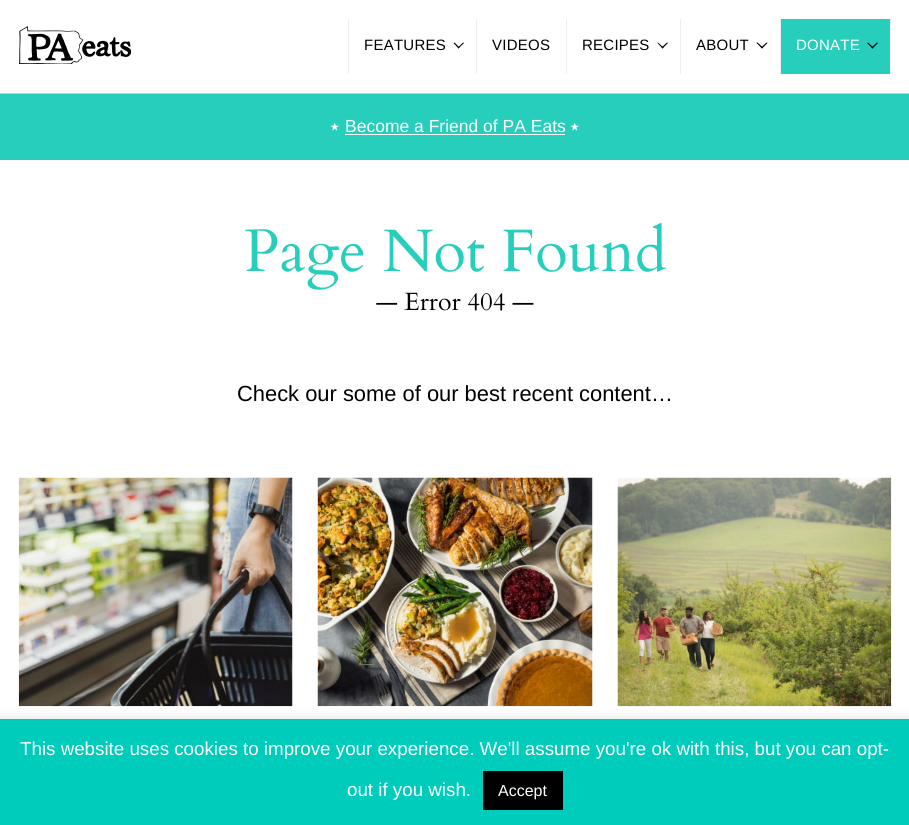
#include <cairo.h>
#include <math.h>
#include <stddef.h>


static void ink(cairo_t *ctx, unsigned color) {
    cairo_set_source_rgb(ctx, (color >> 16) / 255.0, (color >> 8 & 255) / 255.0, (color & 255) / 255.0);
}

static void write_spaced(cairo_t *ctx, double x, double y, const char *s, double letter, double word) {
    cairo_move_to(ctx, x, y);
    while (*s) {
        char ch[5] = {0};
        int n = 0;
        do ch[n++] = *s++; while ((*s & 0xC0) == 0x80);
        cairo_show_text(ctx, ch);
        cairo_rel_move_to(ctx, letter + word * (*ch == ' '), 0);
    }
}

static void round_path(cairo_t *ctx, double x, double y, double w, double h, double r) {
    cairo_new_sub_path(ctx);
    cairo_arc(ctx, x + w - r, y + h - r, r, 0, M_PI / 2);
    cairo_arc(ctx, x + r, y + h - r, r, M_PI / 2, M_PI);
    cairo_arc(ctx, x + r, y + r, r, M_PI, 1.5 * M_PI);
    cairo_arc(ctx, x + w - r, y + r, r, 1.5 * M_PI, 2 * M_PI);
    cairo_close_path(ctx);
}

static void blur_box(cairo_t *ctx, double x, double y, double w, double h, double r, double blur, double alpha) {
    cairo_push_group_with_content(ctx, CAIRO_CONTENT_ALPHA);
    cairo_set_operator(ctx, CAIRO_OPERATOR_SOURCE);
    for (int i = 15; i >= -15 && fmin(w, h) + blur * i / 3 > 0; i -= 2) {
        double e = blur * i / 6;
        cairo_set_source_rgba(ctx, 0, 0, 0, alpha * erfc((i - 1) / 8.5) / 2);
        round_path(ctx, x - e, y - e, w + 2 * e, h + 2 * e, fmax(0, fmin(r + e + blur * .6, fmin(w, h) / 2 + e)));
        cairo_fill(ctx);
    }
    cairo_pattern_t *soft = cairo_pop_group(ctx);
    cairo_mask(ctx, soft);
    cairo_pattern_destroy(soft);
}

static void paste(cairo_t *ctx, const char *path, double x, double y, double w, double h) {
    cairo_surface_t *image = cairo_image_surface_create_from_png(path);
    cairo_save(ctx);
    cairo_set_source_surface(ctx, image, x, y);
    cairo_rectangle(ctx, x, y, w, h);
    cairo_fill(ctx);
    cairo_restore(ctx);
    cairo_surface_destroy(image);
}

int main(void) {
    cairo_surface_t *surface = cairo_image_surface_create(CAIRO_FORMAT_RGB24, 909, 825);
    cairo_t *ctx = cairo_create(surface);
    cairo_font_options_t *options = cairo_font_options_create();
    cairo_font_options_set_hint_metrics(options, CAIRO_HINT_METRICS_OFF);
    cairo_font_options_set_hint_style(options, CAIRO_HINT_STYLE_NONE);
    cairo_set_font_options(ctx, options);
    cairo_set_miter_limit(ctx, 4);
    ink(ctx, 0xFFFFFF);
    cairo_paint(ctx);
    ink(ctx, 0xCCCCCC);
    cairo_rectangle(ctx, 0, 93, 909, 1);
    cairo_fill(ctx);
    paste(ctx, "media/1.png", 19, 26, 112, 38);
    ink(ctx, 0xEEEEEE);
    cairo_rectangle(ctx, 476, 19, 1, 55);
    cairo_fill(ctx);
    cairo_rectangle(ctx, 348, 19, 1, 55);
    cairo_fill(ctx);
    cairo_select_font_face(ctx, "Liberation Sans", CAIRO_FONT_SLANT_NORMAL, CAIRO_FONT_WEIGHT_NORMAL);
    cairo_set_font_size(ctx, 15);
    ink(ctx, 0x000000);
    write_spaced(ctx, 364, 50, "FEATURES", 0.25, 0);
    cairo_new_path(ctx);
    cairo_move_to(ctx, 463, 42.5);
    cairo_line_to(ctx, 464, 43);
    cairo_line_to(ctx, 458.5, 48.5);
    cairo_line_to(ctx, 458, 47.5);
    cairo_close_path(ctx);
    cairo_fill(ctx);
    cairo_new_path(ctx);
    cairo_move_to(ctx, 454.5, 42.5);
    cairo_line_to(ctx, 459.5, 47.5);
    cairo_line_to(ctx, 458.5, 48.5);
    cairo_line_to(ctx, 453.5, 43);
    cairo_close_path(ctx);
    cairo_fill(ctx);
    ink(ctx, 0xEEEEEE);
    cairo_rectangle(ctx, 566, 19, 1, 55);
    cairo_fill(ctx);
    ink(ctx, 0x000000);
    write_spaced(ctx, 492, 50, "VIDEOS", 0.25, 0);
    ink(ctx, 0xEEEEEE);
    cairo_rectangle(ctx, 680, 19, 1, 55);
    cairo_fill(ctx);
    ink(ctx, 0x000000);
    write_spaced(ctx, 582, 50, "RECIPES", 0.25, 0);
    cairo_new_path(ctx);
    cairo_move_to(ctx, 667, 42.5);
    cairo_line_to(ctx, 668, 43);
    cairo_line_to(ctx, 662.5, 48.5);
    cairo_line_to(ctx, 661.5, 47.5);
    cairo_close_path(ctx);
    cairo_fill(ctx);
    cairo_new_path(ctx);
    cairo_move_to(ctx, 658, 42.5);
    cairo_line_to(ctx, 663.5, 47.5);
    cairo_line_to(ctx, 662.5, 48.5);
    cairo_line_to(ctx, 657.5, 43);
    cairo_close_path(ctx);
    cairo_fill(ctx);
    ink(ctx, 0xEEEEEE);
    cairo_rectangle(ctx, 780, 19, 1, 55);
    cairo_fill(ctx);
    ink(ctx, 0x000000);
    write_spaced(ctx, 696, 50, "ABOUT", 0.25, 0);
    cairo_new_path(ctx);
    cairo_move_to(ctx, 766.5, 42.5);
    cairo_line_to(ctx, 767.5, 43);
    cairo_line_to(ctx, 762, 48.5);
    cairo_line_to(ctx, 761, 47.5);
    cairo_close_path(ctx);
    cairo_fill(ctx);
    cairo_new_path(ctx);
    cairo_move_to(ctx, 757.5, 42.5);
    cairo_line_to(ctx, 763, 47.5);
    cairo_line_to(ctx, 762, 48.5);
    cairo_line_to(ctx, 756.5, 43);
    cairo_close_path(ctx);
    cairo_fill(ctx);
    ink(ctx, 0xEEEEEE);
    cairo_rectangle(ctx, 890, 19, 1, 55);
    cairo_fill(ctx);
    ink(ctx, 0x27CEBC);
    cairo_rectangle(ctx, 781, 19, 109, 55);
    cairo_fill(ctx);
    ink(ctx, 0xFFFFFF);
    write_spaced(ctx, 796, 50, "DONATE", 0.25, 0);
    ink(ctx, 0x000000);
    cairo_new_path(ctx);
    cairo_move_to(ctx, 877, 42.5);
    cairo_line_to(ctx, 878, 43);
    cairo_line_to(ctx, 872.5, 48.5);
    cairo_line_to(ctx, 871.5, 47.5);
    cairo_close_path(ctx);
    cairo_fill(ctx);
    cairo_new_path(ctx);
    cairo_move_to(ctx, 868, 42.5);
    cairo_line_to(ctx, 873.5, 47.5);
    cairo_line_to(ctx, 872.5, 48.5);
    cairo_line_to(ctx, 867, 43);
    cairo_close_path(ctx);
    cairo_fill(ctx);
    ink(ctx, 0x27CEBC);
    cairo_rectangle(ctx, 0, 94, 909, 66);
    cairo_fill(ctx);
    cairo_select_font_face(ctx, "FreeSans", CAIRO_FONT_SLANT_NORMAL, CAIRO_FONT_WEIGHT_NORMAL);
    cairo_set_font_size(ctx, 17.5);
    ink(ctx, 0xFFFFFF);
    cairo_move_to(ctx, 330, 132);
    cairo_show_text(ctx, "⭑");
    cairo_select_font_face(ctx, "Liberation Sans", CAIRO_FONT_SLANT_NORMAL, CAIRO_FONT_WEIGHT_NORMAL);
    cairo_move_to(ctx, 345, 132);
    cairo_show_text(ctx, "Become a Friend of PA Eats");
    cairo_rectangle(ctx, 345, 134, 220, 1);
    cairo_fill(ctx);
    cairo_select_font_face(ctx, "FreeSans", CAIRO_FONT_SLANT_NORMAL, CAIRO_FONT_WEIGHT_NORMAL);
    cairo_move_to(ctx, 570, 132);
    cairo_show_text(ctx, "⭑");
    cairo_select_font_face(ctx, "Cardo", CAIRO_FONT_SLANT_NORMAL, CAIRO_FONT_WEIGHT_NORMAL);
    cairo_set_font_size(ctx, 60);
    ink(ctx, 0x27CEBC);
    cairo_move_to(ctx, 244, 271);
    cairo_show_text(ctx, "Page Not Found");
    cairo_set_font_size(ctx, 25);
    ink(ctx, 0x000000);
    cairo_move_to(ctx, 376, 310);
    cairo_show_text(ctx, "— Error 404 —");
    cairo_select_font_face(ctx, "Liberation Sans", CAIRO_FONT_SLANT_NORMAL, CAIRO_FONT_WEIGHT_NORMAL);
    cairo_set_font_size(ctx, 21.9);
    cairo_move_to(ctx, 237, 401);
    cairo_show_text(ctx, "Check our some of our best recent content…");
    paste(ctx, "media/2.png", 18, 477, 275, 230);
    paste(ctx, "media/3.png", 317, 477, 276, 230);
    paste(ctx, "media/4.png", 617, 477, 275, 230);
    ink(ctx, 0xACABAB);
    blur_box(ctx, 0, 718, 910, 106, 0, 6, 0.3);
    ink(ctx, 0x00CCBC);
    cairo_rectangle(ctx, 0, 719, 909, 106);
    cairo_fill(ctx);
    cairo_set_font_size(ctx, 18.75);
    ink(ctx, 0xFFFFFF);
    cairo_move_to(ctx, 20, 755);
    cairo_show_text(ctx, "This website uses cookies to improve your experience. We'll assume you're ok with this, but you can opt-");
    cairo_move_to(ctx, 347, 796);
    cairo_show_text(ctx, "out if you wish.");
    ink(ctx, 0x000000);
    cairo_rectangle(ctx, 483, 771, 80, 39);
    cairo_fill(ctx);
    cairo_set_font_size(ctx, 16);
    ink(ctx, 0xFFFFFF);
    cairo_move_to(ctx, 498, 796);
    cairo_show_text(ctx, "Accept");
    cairo_surface_write_to_png(surface, "image.png");
    cairo_font_options_destroy(options);
    cairo_destroy(ctx);
    cairo_surface_destroy(surface);
    return 0;
}
